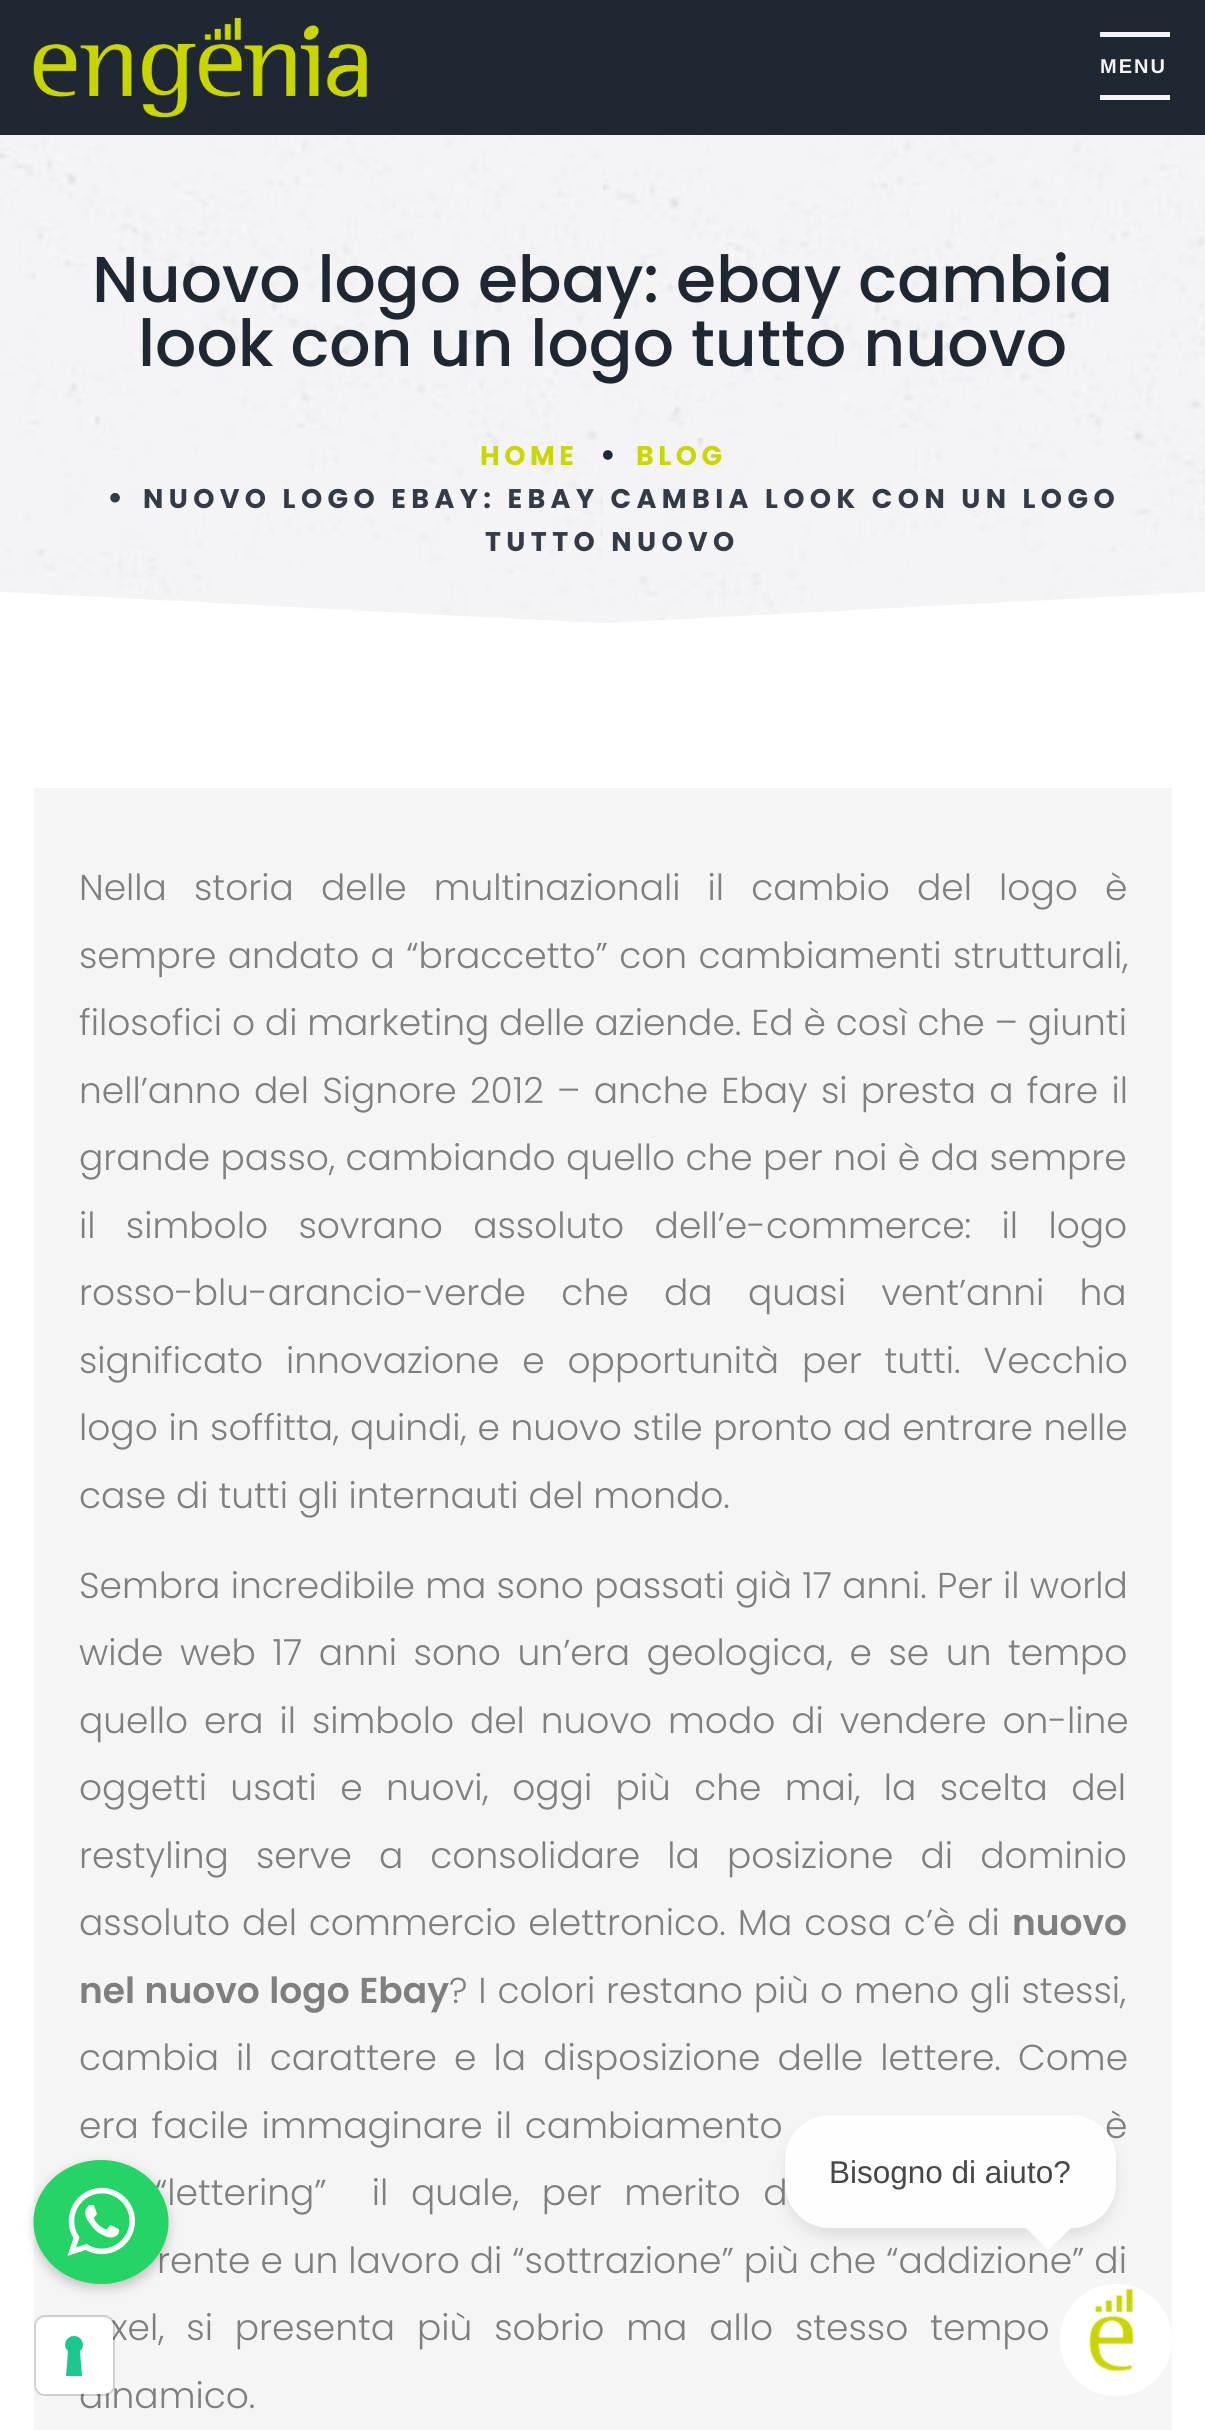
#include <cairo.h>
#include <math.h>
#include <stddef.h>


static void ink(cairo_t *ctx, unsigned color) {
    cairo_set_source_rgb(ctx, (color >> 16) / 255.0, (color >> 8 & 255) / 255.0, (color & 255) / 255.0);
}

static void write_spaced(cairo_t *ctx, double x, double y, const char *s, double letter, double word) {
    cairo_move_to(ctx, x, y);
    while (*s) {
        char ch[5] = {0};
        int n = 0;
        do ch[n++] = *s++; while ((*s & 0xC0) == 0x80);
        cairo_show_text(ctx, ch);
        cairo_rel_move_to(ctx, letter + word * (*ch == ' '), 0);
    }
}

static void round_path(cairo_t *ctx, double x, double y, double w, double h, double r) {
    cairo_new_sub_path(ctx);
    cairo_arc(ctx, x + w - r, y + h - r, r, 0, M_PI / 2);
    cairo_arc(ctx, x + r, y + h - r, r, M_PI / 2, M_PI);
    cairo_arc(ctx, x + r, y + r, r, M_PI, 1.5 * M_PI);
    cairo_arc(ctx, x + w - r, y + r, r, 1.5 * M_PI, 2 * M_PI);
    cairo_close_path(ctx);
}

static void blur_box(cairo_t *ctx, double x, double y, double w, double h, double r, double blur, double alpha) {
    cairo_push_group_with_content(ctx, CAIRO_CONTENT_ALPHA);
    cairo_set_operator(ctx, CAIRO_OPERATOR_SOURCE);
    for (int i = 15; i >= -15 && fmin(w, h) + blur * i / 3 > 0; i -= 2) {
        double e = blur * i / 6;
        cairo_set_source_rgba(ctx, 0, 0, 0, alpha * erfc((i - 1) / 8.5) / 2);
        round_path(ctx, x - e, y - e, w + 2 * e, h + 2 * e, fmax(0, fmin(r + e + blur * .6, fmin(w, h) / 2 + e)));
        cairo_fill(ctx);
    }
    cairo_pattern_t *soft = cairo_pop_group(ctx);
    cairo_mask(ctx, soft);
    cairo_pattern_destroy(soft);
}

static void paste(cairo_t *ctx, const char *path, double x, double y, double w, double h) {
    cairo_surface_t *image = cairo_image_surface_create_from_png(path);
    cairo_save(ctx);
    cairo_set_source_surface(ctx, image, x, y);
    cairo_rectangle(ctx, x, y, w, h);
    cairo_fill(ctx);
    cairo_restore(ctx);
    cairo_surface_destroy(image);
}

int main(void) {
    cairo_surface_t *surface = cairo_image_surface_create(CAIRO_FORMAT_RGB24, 1205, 2430);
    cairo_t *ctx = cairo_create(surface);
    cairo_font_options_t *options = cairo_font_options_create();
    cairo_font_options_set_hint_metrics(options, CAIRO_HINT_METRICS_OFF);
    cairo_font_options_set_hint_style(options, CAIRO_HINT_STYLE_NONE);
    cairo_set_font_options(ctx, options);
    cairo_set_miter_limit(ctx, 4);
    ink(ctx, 0xFFFFFF);
    cairo_paint(ctx);
    ink(ctx, 0x1F2732);
    cairo_rectangle(ctx, 0, 0, 1205, 135);
    cairo_fill(ctx);
    paste(ctx, "media/1.png", 33, 18, 334, 99);
    ink(ctx, 0xF4F4F5);
    cairo_rectangle(ctx, 1100, 32, 70, 5);
    cairo_fill(ctx);
    cairo_rectangle(ctx, 1100, 95, 70, 5);
    cairo_fill(ctx);
    cairo_select_font_face(ctx, "Liberation Sans", CAIRO_FONT_SLANT_NORMAL, CAIRO_FONT_WEIGHT_BOLD);
    cairo_set_font_size(ctx, 20);
    write_spaced(ctx, 1100, 73, "MENU", 2, 0);
    paste(ctx, "media/2.png", 0, 135, 603, 488);
    paste(ctx, "media/3.png", 603, 135, 602, 488);
    cairo_select_font_face(ctx, "Poppins Medium", CAIRO_FONT_SLANT_NORMAL, CAIRO_FONT_WEIGHT_NORMAL);
    cairo_set_font_size(ctx, 64.75);
    ink(ctx, 0x1F2732);
    cairo_move_to(ctx, 92, 302);
    cairo_show_text(ctx, "Nuovo logo ebay: ebay cambia");
    cairo_move_to(ctx, 138, 366);
    cairo_show_text(ctx, "look con un logo tutto nuovo");
    cairo_select_font_face(ctx, "Poppins", CAIRO_FONT_SLANT_NORMAL, CAIRO_FONT_WEIGHT_BOLD);
    cairo_set_font_size(ctx, 27);
    ink(ctx, 0xCBD500);
    write_spaced(ctx, 480, 465, "HOME", 4.5, 0);
    paste(ctx, "media/4.png", 603, 450, 10, 10);
    write_spaced(ctx, 636, 465, "BLOG", 4.5, 0);
    paste(ctx, "media/5.png", 110, 492, 10, 11);
    ink(ctx, 0x343B46);
    write_spaced(ctx, 143, 508, "NUOVO LOGO EBAY: EBAY CAMBIA LOOK CON UN LOGO", 5.4, 0);
    write_spaced(ctx, 485, 551, "TUTTO NUOVO", 5.4, 0);
    ink(ctx, 0xF5F5F5);
    cairo_rectangle(ctx, 34, 788, 1138, 1642);
    cairo_fill(ctx);
    cairo_select_font_face(ctx, "Poppins Light", CAIRO_FONT_SLANT_NORMAL, CAIRO_FONT_WEIGHT_NORMAL);
    cairo_set_font_size(ctx, 36);
    ink(ctx, 0x7F7F7F);
    write_spaced(ctx, 79, 900, "Nella storia delle multinazionali il cambio del logo è", 0, 17.25);
    write_spaced(ctx, 79, 968, "sempre andato a “braccetto” con cambiamenti strutturali,", 0, 1.5);
    cairo_move_to(ctx, 79, 1035);
    cairo_show_text(ctx, "filosofici o di marketing delle aziende. Ed è così che – giunti");
    write_spaced(ctx, 79, 1103, "nell’anno del Signore 2012 – anche Ebay si presta a fare il", 0, 3.4);
    write_spaced(ctx, 79, 1170, "grande passo, cambiando quello che per noi è da sempre", 0, 0.5);
    write_spaced(ctx, 79, 1238, "il simbolo sovrano assoluto dell’e-commerce: il logo", 0, 20.5);
    write_spaced(ctx, 79, 1305, "rosso-blu-arancio-verde che da quasi vent’anni ha", 0, 25.5);
    write_spaced(ctx, 79, 1373, "significato innovazione e opportunità per tutti. Vecchio", 0, 13);
    write_spaced(ctx, 79, 1440, "logo in soffitta, quindi, e nuovo stile pronto ad entrare nelle", 0, 0.75);
    cairo_move_to(ctx, 79, 1508);
    cairo_show_text(ctx, "case di tutti gli internauti del mondo.");
    write_spaced(ctx, 79, 1598, "Sembra incredibile ma sono passati già 17 anni. Per il world", 0, 0.4);
    write_spaced(ctx, 79, 1665, "wide web 17 anni sono un’era geologica, e se un tempo", 0, 6.75);
    write_spaced(ctx, 79, 1733, "quello era il simbolo del nuovo modo di vendere on-line", 0, 6);
    write_spaced(ctx, 79, 1800, "oggetti usati e nuovi, oggi più che mai, la scelta del", 0, 13.5);
    write_spaced(ctx, 79, 1868, "restyling serve a consolidare la posizione di dominio", 0, 17.25);
    write_spaced(ctx, 79, 1935, "assoluto del commercio elettronico. Ma cosa c’è di", 0, 2);
    cairo_select_font_face(ctx, "Poppins SemiBold", CAIRO_FONT_SLANT_NORMAL, CAIRO_FONT_WEIGHT_NORMAL);
    cairo_move_to(ctx, 1012, 1935);
    cairo_show_text(ctx, "nuovo");
    write_spaced(ctx, 79, 2003, "nel nuovo logo Ebay", 0, 1);
    cairo_select_font_face(ctx, "Poppins Light", CAIRO_FONT_SLANT_NORMAL, CAIRO_FONT_WEIGHT_NORMAL);
    write_spaced(ctx, 449, 2003, "? I colori restano più o meno gli stessi,", 0, 1);
    write_spaced(ctx, 79, 2070, "cambia il carattere e la disposizione delle lettere. Come", 0, 7.25);
    write_spaced(ctx, 79, 2138, "era facile immaginare il cambiamento", 0, 3);
    write_spaced(ctx, 1105, 2138, "è", 0, 3);
    write_spaced(ctx, 155, 2205, "“lettering”  il quale, per merito d", 0, 12.75);
    write_spaced(ctx, 157, 2273, "rente e un lavoro di “sottrazione” più che “addizione” di", 0, 0.1);
    write_spaced(ctx, 111, 2340, "xel, si presenta più sobrio ma allo stesso tempo", 0, 12);
    cairo_move_to(ctx, 79, 2408);
    cairo_show_text(ctx, "dinamico.");
    ink(ctx, 0x000000);
    blur_box(ctx, 34, 2165, 135, 123, 61.5, 5.5, 0.2);
    ink(ctx, 0x25D366);
    cairo_new_path(ctx);
    cairo_move_to(ctx, 101, 2160);
    cairo_curve_to(ctx, 138.5, 2160, 168.5, 2188, 168.5, 2222);
    cairo_curve_to(ctx, 168.5, 2256, 138.5, 2284, 101, 2284);
    cairo_curve_to(ctx, 63.5, 2284, 33.5, 2256, 33.5, 2222);
    cairo_curve_to(ctx, 33.5, 2188, 63.5, 2160, 101, 2160);
    cairo_close_path(ctx);
    cairo_fill(ctx);
    paste(ctx, "media/6.png", 67, 2187, 68, 69);
    cairo_save(ctx);
    cairo_set_fill_rule(ctx, CAIRO_FILL_RULE_EVEN_ODD);
    cairo_new_path(ctx);
    cairo_move_to(ctx, 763, 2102);
    cairo_line_to(ctx, 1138, 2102);
    cairo_line_to(ctx, 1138, 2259);
    cairo_line_to(ctx, 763, 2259);
    cairo_close_path(ctx);
    cairo_move_to(ctx, 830, 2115);
    cairo_line_to(ctx, 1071, 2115);
    cairo_curve_to(ctx, 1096, 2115, 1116, 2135, 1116, 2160);
    cairo_line_to(ctx, 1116, 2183);
    cairo_curve_to(ctx, 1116, 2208, 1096, 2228, 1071, 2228);
    cairo_line_to(ctx, 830, 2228);
    cairo_curve_to(ctx, 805, 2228, 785, 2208, 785, 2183);
    cairo_line_to(ctx, 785, 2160);
    cairo_curve_to(ctx, 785, 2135, 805, 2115, 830, 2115);
    cairo_close_path(ctx);
    cairo_clip(ctx);
    ink(ctx, 0x000000);
    blur_box(ctx, 785, 2124, 331, 113, 45, 7, 0.09);
    cairo_restore(ctx);
    cairo_set_source_rgba(ctx, 1, 1, 1, 0.9);
    round_path(ctx, 785, 2115, 331, 113, 45);
    cairo_fill(ctx);
    cairo_select_font_face(ctx, "Liberation Sans", CAIRO_FONT_SLANT_NORMAL, CAIRO_FONT_WEIGHT_NORMAL);
    cairo_set_font_size(ctx, 31.5);
    ink(ctx, 0x474747);
    cairo_move_to(ctx, 829, 2183);
    cairo_show_text(ctx, "Bisogno di aiuto?");
    ink(ctx, 0xFEFEFE);
    cairo_new_path(ctx);
    cairo_move_to(ctx, 1026, 2228);
    cairo_line_to(ctx, 1071, 2228);
    cairo_line_to(ctx, 1048, 2250);
    cairo_close_path(ctx);
    cairo_fill(ctx);
    paste(ctx, "media/7.png", 1060, 2284, 112, 112);
    round_path(ctx, 35, 2316, 79, 79, 10);
    cairo_set_source_rgba(ctx, 0, 0, 0, 0.15);
    cairo_stroke(ctx);
    ink(ctx, 0xFFFFFF);
    round_path(ctx, 36, 2318, 77, 76, 9);
    cairo_fill(ctx);
    ink(ctx, 0x1CC691);
    cairo_set_fill_rule(ctx, CAIRO_FILL_RULE_EVEN_ODD);
    cairo_new_path(ctx);
    cairo_move_to(ctx, 74, 2336);
    cairo_curve_to(ctx, 82, 2336, 86, 2346, 80, 2351);
    cairo_line_to(ctx, 82, 2376);
    cairo_line_to(ctx, 66, 2376);
    cairo_line_to(ctx, 68, 2351);
    cairo_curve_to(ctx, 62, 2346, 66, 2336, 74, 2336);
    cairo_close_path(ctx);
    cairo_fill(ctx);
    cairo_surface_write_to_png(surface, "image.png");
    cairo_font_options_destroy(options);
    cairo_destroy(ctx);
    cairo_surface_destroy(surface);
    return 0;
}
